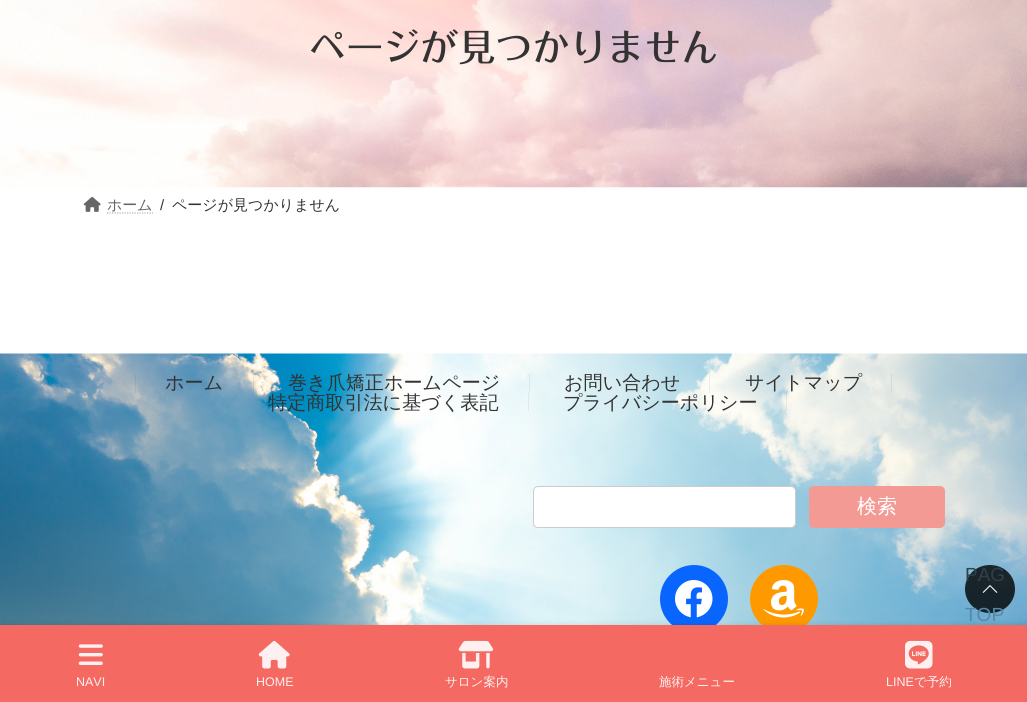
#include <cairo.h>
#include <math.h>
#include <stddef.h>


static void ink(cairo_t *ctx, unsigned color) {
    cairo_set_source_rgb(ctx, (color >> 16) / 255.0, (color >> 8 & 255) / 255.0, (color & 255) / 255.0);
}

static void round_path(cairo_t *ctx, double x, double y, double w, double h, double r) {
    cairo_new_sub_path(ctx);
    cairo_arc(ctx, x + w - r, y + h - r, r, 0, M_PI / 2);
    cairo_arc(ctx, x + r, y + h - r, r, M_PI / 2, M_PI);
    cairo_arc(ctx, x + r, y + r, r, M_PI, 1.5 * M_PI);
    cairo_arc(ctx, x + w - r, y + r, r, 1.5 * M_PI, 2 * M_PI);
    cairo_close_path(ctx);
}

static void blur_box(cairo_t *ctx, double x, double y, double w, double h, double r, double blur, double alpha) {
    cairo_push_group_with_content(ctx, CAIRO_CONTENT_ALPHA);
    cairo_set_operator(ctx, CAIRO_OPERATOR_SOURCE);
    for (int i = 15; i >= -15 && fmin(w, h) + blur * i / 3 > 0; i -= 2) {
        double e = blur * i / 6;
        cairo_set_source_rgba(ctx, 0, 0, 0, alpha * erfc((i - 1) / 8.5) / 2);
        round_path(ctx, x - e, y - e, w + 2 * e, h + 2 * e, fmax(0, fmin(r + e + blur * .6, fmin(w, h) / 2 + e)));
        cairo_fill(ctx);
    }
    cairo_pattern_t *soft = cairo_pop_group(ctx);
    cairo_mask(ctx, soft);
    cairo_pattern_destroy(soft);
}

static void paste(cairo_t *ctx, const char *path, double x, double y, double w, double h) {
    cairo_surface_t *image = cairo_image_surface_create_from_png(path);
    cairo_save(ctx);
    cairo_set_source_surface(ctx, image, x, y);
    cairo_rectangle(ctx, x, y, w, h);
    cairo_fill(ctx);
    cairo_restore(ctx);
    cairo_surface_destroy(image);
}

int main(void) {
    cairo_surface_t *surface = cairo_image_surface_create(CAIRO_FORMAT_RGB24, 1027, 702);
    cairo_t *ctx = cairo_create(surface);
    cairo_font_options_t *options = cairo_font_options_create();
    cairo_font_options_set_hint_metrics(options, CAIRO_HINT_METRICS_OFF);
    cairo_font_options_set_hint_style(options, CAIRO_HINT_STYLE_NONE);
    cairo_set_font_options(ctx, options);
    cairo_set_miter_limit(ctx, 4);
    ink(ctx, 0xFFFFFF);
    cairo_paint(ctx);
    paste(ctx, "media/1.png", 0, 0, 1027, 188);
    cairo_select_font_face(ctx, "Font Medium", CAIRO_FONT_SLANT_NORMAL, CAIRO_FONT_WEIGHT_NORMAL);
    cairo_set_font_size(ctx, 37.25);
    ink(ctx, 0x333333);
    cairo_move_to(ctx, 309, 61);
    cairo_show_text(ctx, "ページが見つかりません");
    paste(ctx, "media/2.png", 83, 196, 18, 16);
    cairo_select_font_face(ctx, "WenQuanYi Zen Hei Medium", CAIRO_FONT_SLANT_NORMAL, CAIRO_FONT_WEIGHT_NORMAL);
    cairo_set_font_size(ctx, 15);
    ink(ctx, 0x666666);
    cairo_move_to(ctx, 107, 210);
    cairo_show_text(ctx, "ホーム");
    cairo_new_path(ctx);
    cairo_move_to(ctx, 107, 213);
    cairo_line_to(ctx, 153, 213);
    ink(ctx, 0xB3B3B3);
    cairo_set_line_width(ctx, 1.2);
    cairo_set_dash(ctx, (double[]){1.25, 1.25}, 2, 0);
    cairo_stroke(ctx);
    cairo_select_font_face(ctx, "Liberation Sans", CAIRO_FONT_SLANT_NORMAL, CAIRO_FONT_WEIGHT_NORMAL);
    ink(ctx, 0x333333);
    cairo_move_to(ctx, 160, 210);
    cairo_show_text(ctx, "/");
    cairo_select_font_face(ctx, "WenQuanYi Zen Hei Medium", CAIRO_FONT_SLANT_NORMAL, CAIRO_FONT_WEIGHT_NORMAL);
    cairo_move_to(ctx, 172, 210);
    cairo_show_text(ctx, "ページが見つかりません");
    paste(ctx, "media/3.png", 0, 353, 1027, 272);
    cairo_set_source_rgba(ctx, 0, 0, 0, 0.06);
    cairo_rectangle(ctx, 253, 374, 1, 19);
    cairo_fill(ctx);
    cairo_rectangle(ctx, 135, 374, 1, 19);
    cairo_fill(ctx);
    cairo_set_font_size(ctx, 19.1);
    ink(ctx, 0x333333);
    cairo_move_to(ctx, 165, 389);
    cairo_show_text(ctx, "ホーム");
    cairo_set_source_rgba(ctx, 0, 0, 0, 0.06);
    cairo_rectangle(ctx, 529, 374, 1, 19);
    cairo_fill(ctx);
    ink(ctx, 0x333333);
    cairo_move_to(ctx, 288, 389);
    cairo_show_text(ctx, "巻き爪矯正ホームページ");
    cairo_set_source_rgba(ctx, 0, 0, 0, 0.06);
    cairo_rectangle(ctx, 709, 374, 1, 19);
    cairo_fill(ctx);
    ink(ctx, 0x333333);
    cairo_move_to(ctx, 564, 389);
    cairo_show_text(ctx, "お問い合わせ");
    cairo_set_source_rgba(ctx, 0, 0, 0, 0.06);
    cairo_rectangle(ctx, 891, 374, 1, 19);
    cairo_fill(ctx);
    ink(ctx, 0x333333);
    cairo_move_to(ctx, 745, 389);
    cairo_show_text(ctx, "サイトマップ");
    cairo_set_source_rgba(ctx, 0, 0, 0, 0.06);
    cairo_rectangle(ctx, 528, 393, 1, 18);
    cairo_fill(ctx);
    ink(ctx, 0x333333);
    cairo_move_to(ctx, 268, 409);
    cairo_show_text(ctx, "特定商取引法に基づく表記");
    cairo_set_source_rgba(ctx, 0, 0, 0, 0.06);
    cairo_rectangle(ctx, 786, 393, 1, 18);
    cairo_fill(ctx);
    ink(ctx, 0x333333);
    cairo_move_to(ctx, 563, 409);
    cairo_show_text(ctx, "プライバシーポリシー");
    ink(ctx, 0xFFFFFF);
    round_path(ctx, 533.5, 486.5, 262, 41, 4.5);
    cairo_fill_preserve(ctx);
    ink(ctx, 0xCCCCCC);
    cairo_set_line_width(ctx, 1);
    cairo_set_dash(ctx, NULL, 0, 0);
    cairo_stroke(ctx);
    ink(ctx, 0xF49A95);
    round_path(ctx, 809, 486, 136, 42, 5);
    cairo_fill(ctx);
    cairo_set_font_size(ctx, 20);
    ink(ctx, 0xFFFFFF);
    cairo_move_to(ctx, 857, 513);
    cairo_show_text(ctx, "検索");
    ink(ctx, 0x0866FF);
    cairo_new_path(ctx);
    cairo_arc(ctx, 694, 599, 34, 0, 2 * M_PI);
    cairo_fill(ctx);
    paste(ctx, "media/4.png", 675, 580, 38, 38);
    ink(ctx, 0xFF9900);
    cairo_arc(ctx, 784, 599, 34, 0, 2 * M_PI);
    cairo_fill(ctx);
    paste(ctx, "media/5.png", 763, 580, 41, 38);
    cairo_set_source_rgba(ctx, 0, 0, 0, 0.8);
    cairo_new_path(ctx);
    cairo_move_to(ctx, 990, 565);
    cairo_curve_to(ctx, 1004, 565, 1015, 575.5, 1015, 589);
    cairo_curve_to(ctx, 1015, 602.5, 1004, 613, 990, 613);
    cairo_curve_to(ctx, 976, 613, 965, 602.5, 965, 589);
    cairo_curve_to(ctx, 965, 575.5, 976, 565, 990, 565);
    cairo_close_path(ctx);
    cairo_fill(ctx);
    paste(ctx, "media/6.png", 982, 585, 16, 8);
    cairo_select_font_face(ctx, "Liberation Sans", CAIRO_FONT_SLANT_NORMAL, CAIRO_FONT_WEIGHT_NORMAL);
    cairo_set_font_size(ctx, 19);
    ink(ctx, 0x2E404A);
    cairo_move_to(ctx, 965, 581);
    cairo_show_text(ctx, "PAG");
    ink(ctx, 0x000000);
    blur_box(ctx, 0, 625, 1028, 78, 0, 3, 0.12);
    ink(ctx, 0x5788A5);
    cairo_move_to(ctx, 965, 621);
    cairo_show_text(ctx, "TOP");
    ink(ctx, 0xF46961);
    cairo_rectangle(ctx, 0, 625, 1027, 77);
    cairo_fill(ctx);
    paste(ctx, "media/7.png", 78, 644, 25, 21);
    cairo_set_font_size(ctx, 12.5);
    ink(ctx, 0xFEF0EF);
    cairo_move_to(ctx, 76, 686);
    cairo_show_text(ctx, "NAVI");
    paste(ctx, "media/8.png", 258, 641, 32, 28);
    cairo_move_to(ctx, 256, 686);
    cairo_show_text(ctx, "HOME");
    paste(ctx, "media/9.png", 458, 640, 36, 29);
    cairo_select_font_face(ctx, "WenQuanYi Zen Hei Medium", CAIRO_FONT_SLANT_NORMAL, CAIRO_FONT_WEIGHT_NORMAL);
    cairo_move_to(ctx, 445, 686);
    cairo_show_text(ctx, "サロン案内");
    cairo_move_to(ctx, 659, 686);
    cairo_show_text(ctx, "施術メニュー");
    paste(ctx, "media/10.png", 905, 640, 28, 29);
    cairo_select_font_face(ctx, "Liberation Sans", CAIRO_FONT_SLANT_NORMAL, CAIRO_FONT_WEIGHT_NORMAL);
    cairo_move_to(ctx, 886, 686);
    cairo_show_text(ctx, "LINE");
    cairo_select_font_face(ctx, "WenQuanYi Zen Hei Medium", CAIRO_FONT_SLANT_NORMAL, CAIRO_FONT_WEIGHT_NORMAL);
    cairo_move_to(ctx, 914, 686);
    cairo_show_text(ctx, "で予約");
    cairo_surface_write_to_png(surface, "image.png");
    cairo_font_options_destroy(options);
    cairo_destroy(ctx);
    cairo_surface_destroy(surface);
    return 0;
}
